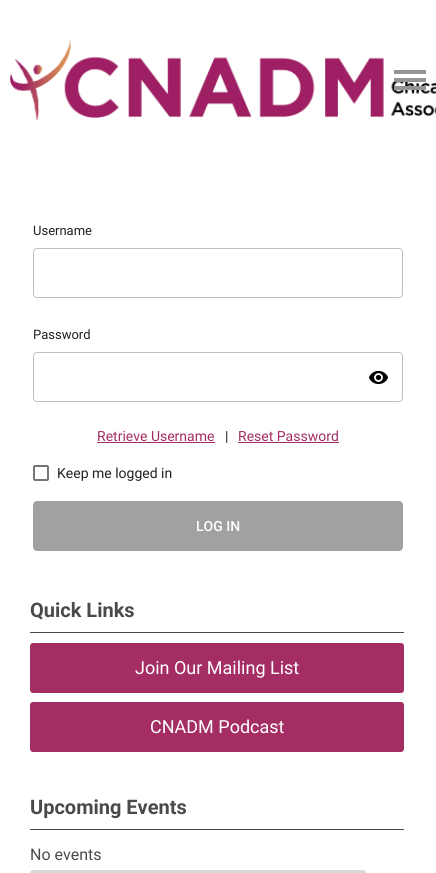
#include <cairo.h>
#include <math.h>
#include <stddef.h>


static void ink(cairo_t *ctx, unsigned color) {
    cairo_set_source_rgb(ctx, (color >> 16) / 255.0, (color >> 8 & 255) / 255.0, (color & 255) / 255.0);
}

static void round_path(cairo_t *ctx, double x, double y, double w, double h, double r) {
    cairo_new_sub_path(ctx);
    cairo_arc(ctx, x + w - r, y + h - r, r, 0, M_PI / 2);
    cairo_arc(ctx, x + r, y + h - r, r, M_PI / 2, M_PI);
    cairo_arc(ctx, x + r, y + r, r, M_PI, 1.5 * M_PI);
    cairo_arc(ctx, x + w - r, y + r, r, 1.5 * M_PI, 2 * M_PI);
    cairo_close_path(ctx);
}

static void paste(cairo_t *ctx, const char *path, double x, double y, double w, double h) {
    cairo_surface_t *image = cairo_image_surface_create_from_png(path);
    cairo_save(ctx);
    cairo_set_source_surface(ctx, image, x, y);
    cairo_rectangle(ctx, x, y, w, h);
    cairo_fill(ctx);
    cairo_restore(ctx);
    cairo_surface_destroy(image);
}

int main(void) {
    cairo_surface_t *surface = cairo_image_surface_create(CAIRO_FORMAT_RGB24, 436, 873);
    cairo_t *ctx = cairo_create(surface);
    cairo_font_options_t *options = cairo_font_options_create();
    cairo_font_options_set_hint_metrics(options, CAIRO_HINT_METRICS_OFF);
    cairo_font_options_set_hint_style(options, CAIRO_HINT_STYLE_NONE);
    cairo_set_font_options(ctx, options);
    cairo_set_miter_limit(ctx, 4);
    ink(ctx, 0xFFFFFF);
    cairo_paint(ctx);
    paste(ctx, "media/1.png", 10, 40, 426, 80);
    paste(ctx, "media/2.png", 394, 70, 32, 20);
    cairo_select_font_face(ctx, "Roboto", CAIRO_FONT_SLANT_NORMAL, CAIRO_FONT_WEIGHT_NORMAL);
    cairo_set_font_size(ctx, 13);
    ink(ctx, 0x212121);
    cairo_move_to(ctx, 33, 235);
    cairo_show_text(ctx, "Username");
    round_path(ctx, 33.5, 248.5, 369, 49, 3.5);
    ink(ctx, 0xBFBFBF);
    cairo_set_line_width(ctx, 1);
    cairo_stroke(ctx);
    ink(ctx, 0x212121);
    cairo_move_to(ctx, 33, 339);
    cairo_show_text(ctx, "Password");
    round_path(ctx, 33.5, 352.5, 369, 49, 3.5);
    ink(ctx, 0xBFBFBF);
    cairo_stroke(ctx);
    paste(ctx, "media/3.png", 368, 370, 21, 15);
    cairo_set_font_size(ctx, 14);
    ink(ctx, 0xA42E63);
    cairo_move_to(ctx, 97, 441);
    cairo_show_text(ctx, "Retrieve Username");
    cairo_rectangle(ctx, 97, 442, 118, 1);
    cairo_fill(ctx);
    ink(ctx, 0x212121);
    cairo_move_to(ctx, 225, 441);
    cairo_show_text(ctx, "|");
    ink(ctx, 0xA42E63);
    cairo_move_to(ctx, 238, 441);
    cairo_show_text(ctx, "Reset Password");
    cairo_rectangle(ctx, 238, 442, 101, 1);
    cairo_fill(ctx);
    round_path(ctx, 34, 466, 14, 14, 1);
    ink(ctx, 0x757575);
    cairo_set_line_width(ctx, 2);
    cairo_stroke(ctx);
    ink(ctx, 0x212121);
    cairo_move_to(ctx, 57, 478);
    cairo_show_text(ctx, "Keep me logged in");
    ink(ctx, 0xA1A1A1);
    round_path(ctx, 33, 501, 370, 50, 4);
    cairo_fill(ctx);
    cairo_select_font_face(ctx, "Roboto Medium", CAIRO_FONT_SLANT_NORMAL, CAIRO_FONT_WEIGHT_NORMAL);
    ink(ctx, 0xFFFFFF);
    cairo_move_to(ctx, 196, 531);
    cairo_show_text(ctx, "LOG IN");
    ink(ctx, 0x4A4A4A);
    cairo_rectangle(ctx, 30, 632, 374, 1);
    cairo_fill(ctx);
    cairo_select_font_face(ctx, "Roboto", CAIRO_FONT_SLANT_NORMAL, CAIRO_FONT_WEIGHT_BOLD);
    cairo_set_font_size(ctx, 20);
    cairo_move_to(ctx, 30, 617);
    cairo_show_text(ctx, "Quick Links");
    ink(ctx, 0xA42E63);
    round_path(ctx, 30, 643, 374, 50, 3);
    cairo_fill(ctx);
    cairo_select_font_face(ctx, "Roboto", CAIRO_FONT_SLANT_NORMAL, CAIRO_FONT_WEIGHT_NORMAL);
    cairo_set_font_size(ctx, 18);
    ink(ctx, 0xFFFFFF);
    cairo_move_to(ctx, 135, 674);
    cairo_show_text(ctx, "Join Our Mailing List");
    ink(ctx, 0xA42E63);
    round_path(ctx, 30, 702, 374, 50, 3);
    cairo_fill(ctx);
    ink(ctx, 0xFFFFFF);
    cairo_move_to(ctx, 150, 733);
    cairo_show_text(ctx, "CNADM Podcast");
    ink(ctx, 0x4A4A4A);
    cairo_rectangle(ctx, 30, 829, 374, 1);
    cairo_fill(ctx);
    cairo_select_font_face(ctx, "Roboto", CAIRO_FONT_SLANT_NORMAL, CAIRO_FONT_WEIGHT_BOLD);
    cairo_set_font_size(ctx, 20);
    cairo_move_to(ctx, 30, 814);
    cairo_show_text(ctx, "Upcoming Events");
    cairo_select_font_face(ctx, "Roboto", CAIRO_FONT_SLANT_NORMAL, CAIRO_FONT_WEIGHT_NORMAL);
    cairo_set_font_size(ctx, 16);
    cairo_move_to(ctx, 30, 860);
    cairo_show_text(ctx, "No events");
    ink(ctx, 0xD9D9D9);
    round_path(ctx, 30, 870, 336, 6, 3);
    cairo_fill(ctx);
    cairo_surface_write_to_png(surface, "image.png");
    cairo_font_options_destroy(options);
    cairo_destroy(ctx);
    cairo_surface_destroy(surface);
    return 0;
}
